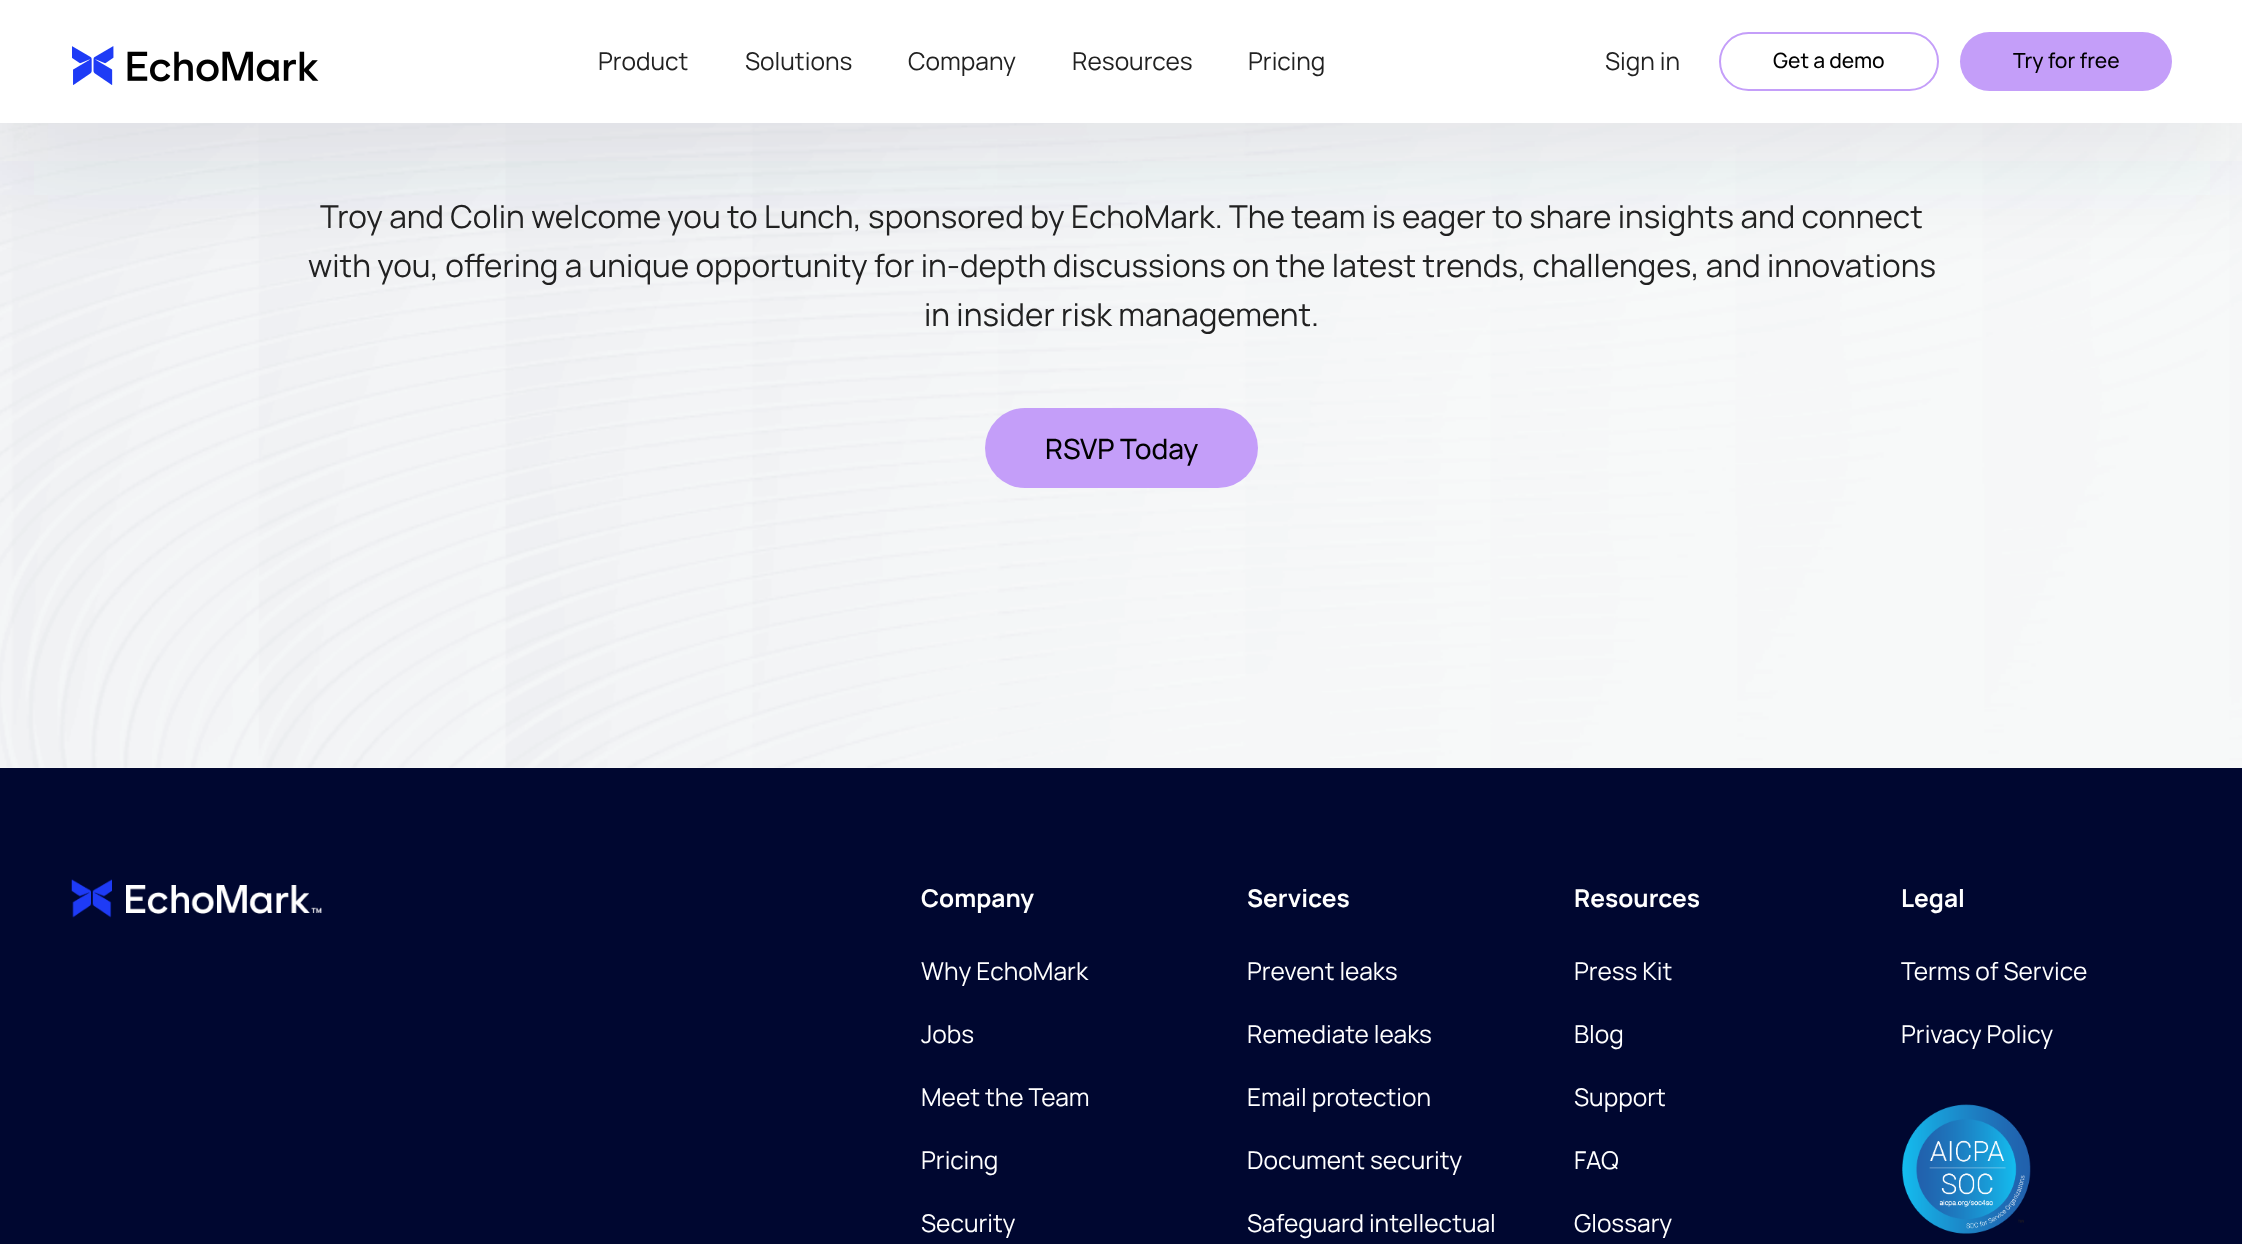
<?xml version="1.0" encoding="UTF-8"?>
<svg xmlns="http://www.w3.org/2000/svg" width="2242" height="1244">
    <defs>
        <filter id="blur1" x="-50%" y="-200%" width="200%" height="500%"><feGaussianBlur stdDeviation="51"/></filter>
    </defs>
    <rect width="100%" height="100%" fill="#FFFFFF"/>
    <image x="0" y="123" width="2242" height="645" href="img_02.png"/>
    <rect x="0" y="39" width="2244" height="122" fill="#364757" fill-opacity="0.1" filter="url(#blur1)"/>
    <rect x="0" y="0" width="2242" height="123" fill="#FFFFFF"/>
    <image x="72" y="46" width="247" height="39" href="img_01.png"/>
    <text x="598" y="70" font-family="Manrope" font-size="24.5" fill="#212121">Product</text>
    <text x="745" y="70" font-family="Manrope" font-size="24.5" fill="#212121">Solutions</text>
    <text x="908" y="70" font-family="Manrope" font-size="24.5" fill="#212121">Company</text>
    <text x="1072" y="70" font-family="Manrope" font-size="24.5" fill="#212121">Resources</text>
    <text x="1248" y="70" font-family="Manrope" font-size="24.5" fill="#212121">Pricing</text>
    <text x="1605" y="70" font-family="Manrope" font-size="24.5" fill="#212121">Sign in</text>
    <rect x="1720" y="33" width="218" height="57" rx="28.5" fill="none" stroke="#C49EF9" stroke-width="2"/>
    <text x="1773" y="68" font-family="Manrope" font-size="21" font-weight="500" fill="#000000">Get a demo</text>
    <rect x="1960" y="32" width="212" height="59" rx="29.5" fill="#C49EF9"/>
    <text x="2013" y="68" font-family="Manrope" font-size="21" font-weight="500" fill="#000000">Try for free</text>
    <text x="320" y="228" font-family="Manrope" font-size="31.5" fill="#212121">Troy and Colin welcome you to Lunch, sponsored by EchoMark. The team is eager to share insights and connect</text>
    <text x="308" y="277" font-family="Manrope" font-size="31.5" fill="#212121">with you, offering a unique opportunity for in-depth discussions on the latest trends, challenges, and innovations</text>
    <text x="924" y="326" font-family="Manrope" font-size="31.5" fill="#212121">in insider risk management.</text>
    <rect x="985" y="408" width="273" height="80" rx="40" fill="#C49EF9"/>
    <text x="1045" y="459" font-family="Manrope" font-size="28" font-weight="500" fill="#000000">RSVP Today</text>
    <rect x="0" y="768" width="2242" height="476" fill="#000730"/>
    <image x="71" y="879" width="251" height="39" href="img_03.png"/>
    <text x="921" y="907" font-family="Manrope" font-size="24.5" font-weight="700" fill="#FFFFFF">Company</text>
    <text x="921" y="980" font-family="Manrope" font-size="24.5" fill="#FFFFFF">Why EchoMark</text>
    <text x="921" y="1043" font-family="Manrope" font-size="24.5" fill="#FFFFFF">Jobs</text>
    <text x="921" y="1106" font-family="Manrope" font-size="24.5" fill="#FFFFFF">Meet the Team</text>
    <text x="921" y="1169" font-family="Manrope" font-size="24.5" fill="#FFFFFF">Pricing</text>
    <text x="921" y="1232" font-family="Manrope" font-size="24.5" fill="#FFFFFF">Security</text>
    <text x="1247" y="907" font-family="Manrope" font-size="24.5" font-weight="700" fill="#FFFFFF">Services</text>
    <text x="1247" y="980" font-family="Manrope" font-size="24.5" fill="#FFFFFF">Prevent leaks</text>
    <text x="1247" y="1043" font-family="Manrope" font-size="24.5" fill="#FFFFFF">Remediate leaks</text>
    <text x="1247" y="1106" font-family="Manrope" font-size="24.5" fill="#FFFFFF">Email protection</text>
    <text x="1247" y="1169" font-family="Manrope" font-size="24.5" fill="#FFFFFF">Document security</text>
    <text x="1247" y="1232" font-family="Manrope" font-size="24.5" fill="#FFFFFF">Safeguard intellectual</text>
    <text x="1574" y="907" font-family="Manrope" font-size="24.5" font-weight="700" fill="#FFFFFF">Resources</text>
    <text x="1574" y="980" font-family="Manrope" font-size="24.5" fill="#FFFFFF">Press Kit</text>
    <text x="1574" y="1043" font-family="Manrope" font-size="24.5" fill="#FFFFFF">Blog</text>
    <text x="1574" y="1106" font-family="Manrope" font-size="24.5" fill="#FFFFFF">Support</text>
    <text x="1574" y="1169" font-family="Manrope" font-size="24.5" fill="#FFFFFF">FAQ</text>
    <text x="1574" y="1232" font-family="Manrope" font-size="24.5" fill="#FFFFFF">Glossary</text>
    <text x="1901" y="907" font-family="Manrope" font-size="24.5" font-weight="700" fill="#FFFFFF">Legal</text>
    <text x="1901" y="980" font-family="Manrope" font-size="24.5" fill="#FFFFFF">Terms of Service</text>
    <text x="1901" y="1043" font-family="Manrope" font-size="24.5" fill="#FFFFFF">Privacy Policy</text>
    <image x="1902" y="1104" width="129" height="130" href="img_04.png"/>
</svg>
